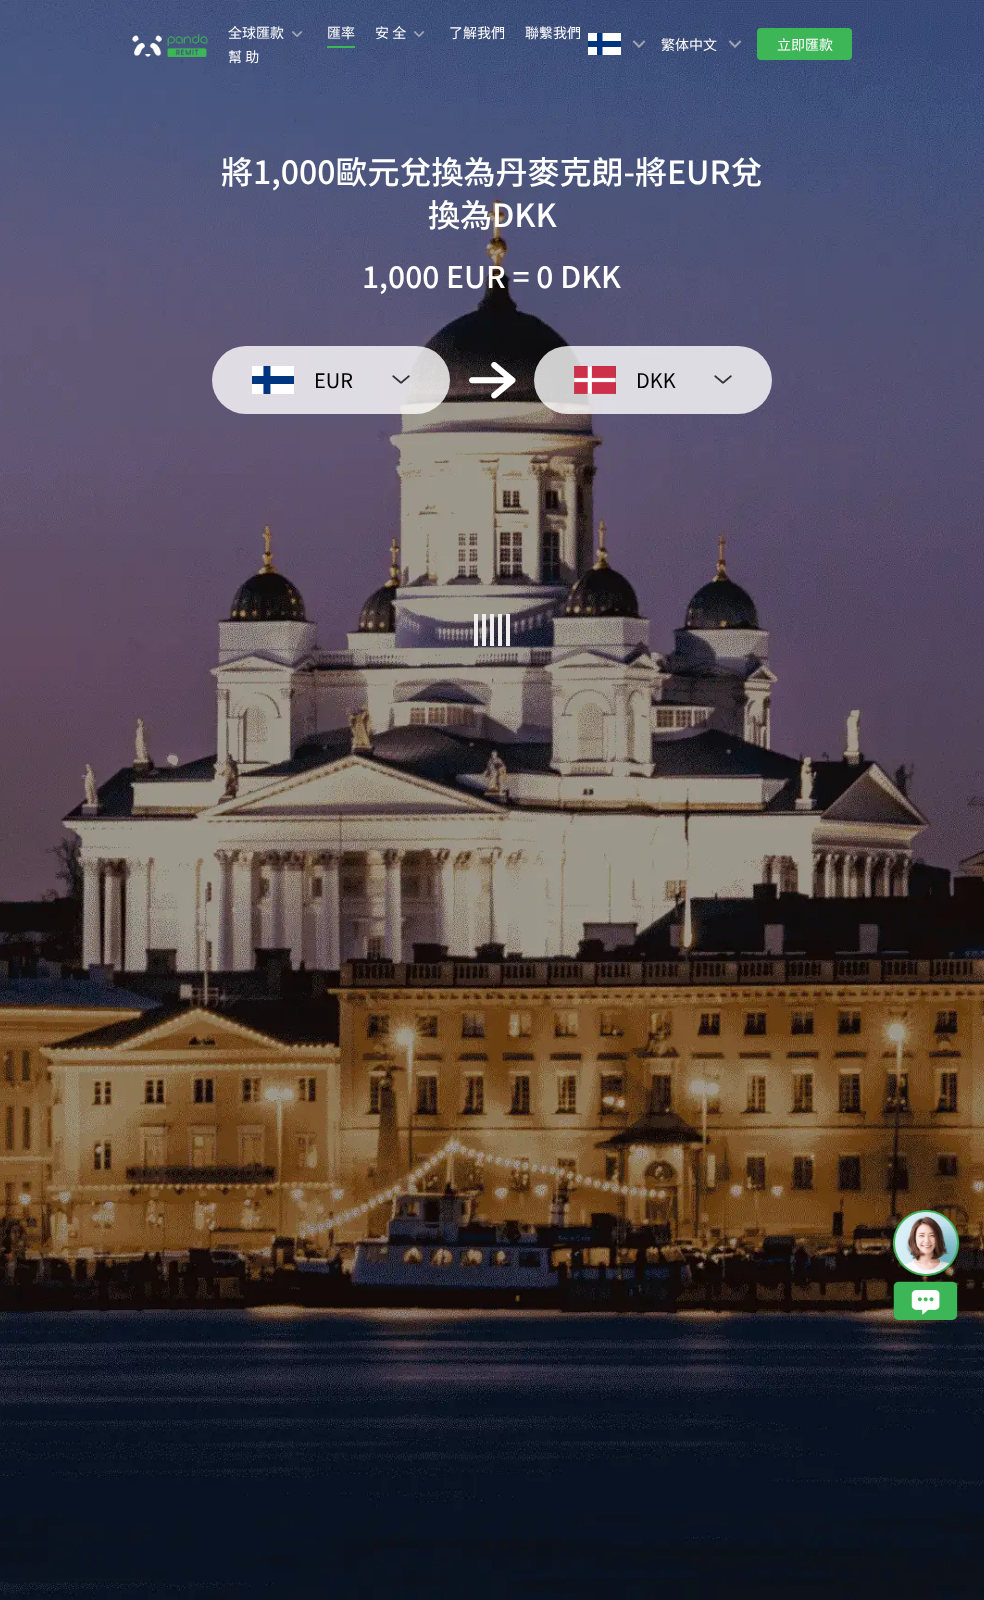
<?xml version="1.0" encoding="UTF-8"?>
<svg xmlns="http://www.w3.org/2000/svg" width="984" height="1600">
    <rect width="100%" height="100%" fill="#FFFFFF"/>
    <image x="0" y="0" width="984" height="1600" href="img_01.png"/>
    <image x="132" y="33" width="76" height="24" href="img_02.png"/>
    <text x="228" y="38" font-family="Noto Sans CJK SC" font-size="14" fill="#FFFFFF">全球匯款</text>
    <image x="291" y="31" width="12" height="7" href="img_03.png"/>
    <text x="327" y="38" font-family="Noto Sans CJK SC" font-size="14" fill="#FFFFFF">匯率</text>
    <rect x="327" y="46" width="28" height="2" fill="#3DB657"/>
    <text x="375" y="38" font-family="Noto Sans CJK SC" font-size="14" fill="#FFFFFF">安 全</text>
    <image x="413" y="31" width="12" height="7" href="img_04.png"/>
    <text x="449" y="38" font-family="Noto Sans CJK SC" font-size="14" fill="#FFFFFF">了解我們</text>
    <text x="525" y="38" font-family="Noto Sans CJK SC" font-size="14" fill="#FFFFFF">聯繫我們</text>
    <text x="228" y="62" font-family="Noto Sans CJK SC" font-size="14" fill="#FFFFFF">幫 助</text>
    <image x="588" y="33" width="33" height="22" href="img_05.png"/>
    <image x="632" y="40" width="14" height="8" href="img_06.png"/>
    <text x="661" y="50" font-family="Noto Sans CJK SC" font-size="14" fill="#FFFFFF">繁体中文</text>
    <image x="728" y="40" width="14" height="8" href="img_07.png"/>
    <rect x="757" y="28" width="95" height="32" rx="4" fill="#3DB657"/>
    <text x="777" y="50" font-family="Noto Sans CJK SC" font-size="14" fill="#FFFFFF">立即匯款</text>
    <text x="221" y="184" font-family="Noto Sans CJK SC" font-size="32" font-weight="500" fill="#FFFFFF">將1,000歐元兌換為丹麥克朗-將EUR兌</text>
    <text x="428" y="227" font-family="Noto Sans CJK SC" font-size="32" font-weight="500" fill="#FFFFFF">換為DKK</text>
    <text x="362" y="288" font-family="Noto Sans CJK SC" font-size="30" font-weight="500" fill="#FFFFFF">1,000 EUR = 0 DKK</text>
    <rect x="212" y="346" width="238" height="68" rx="34" fill="#FFFFFF" fill-opacity="0.8"/>
    <image x="252" y="366" width="42" height="28" href="img_08.png"/>
    <text x="314" y="388" font-family="Noto Sans CJK SC" font-size="20" fill="#000000">EUR</text>
    <image x="392" y="375" width="18" height="9" href="img_09.png"/>
    <image x="469" y="362" width="47" height="37" href="img_10.png"/>
    <rect x="534" y="346" width="238" height="68" rx="34" fill="#FFFFFF" fill-opacity="0.8"/>
    <image x="574" y="366" width="42" height="28" href="img_11.png"/>
    <text x="636" y="388" font-family="Noto Sans CJK SC" font-size="20" fill="#000000">DKK</text>
    <image x="714" y="375" width="18" height="9" href="img_12.png"/>
    <rect x="474" y="614" width="4" height="32" fill="#EEEEEE"/>
    <rect x="482" y="614" width="4" height="32" fill="#EEEEEE"/>
    <rect x="490" y="614" width="4" height="32" fill="#EEEEEE"/>
    <rect x="498" y="614" width="4" height="32" fill="#EEEEEE"/>
    <rect x="506" y="614" width="4" height="32" fill="#EEEEEE"/>
    <image x="893" y="1210" width="67" height="110" href="img_13.png"/>
</svg>
